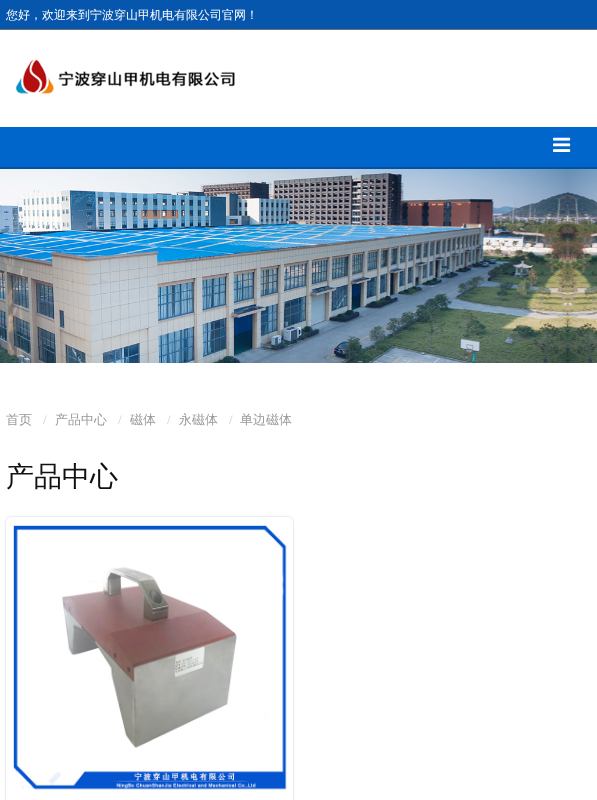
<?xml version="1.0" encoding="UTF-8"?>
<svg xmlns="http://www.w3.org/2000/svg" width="597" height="800">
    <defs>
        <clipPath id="clip1"><path d="M 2 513 H 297 V 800 H 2 Z M 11 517 H 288 C 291 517 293 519 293 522 V 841 C 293 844 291 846 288 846 H 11 C 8 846 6 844 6 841 V 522 C 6 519 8 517 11 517 Z" clip-rule="evenodd"/></clipPath>
        <filter id="blur1" x="-50%" y="-200%" width="200%" height="500%"><feGaussianBlur stdDeviation="1"/></filter>
    </defs>
    <rect width="100%" height="100%" fill="#FFFFFF"/>
    <rect x="0" y="0" width="597" height="29" fill="#0656AD"/>
    <rect x="0" y="29" width="597" height="1" fill="#6F6F6F"/>
    <text x="6" y="19" font-family="WenQuanYi Zen Hei" font-size="12" font-weight="500" fill="#FFFFFF">您好，欢迎来到宁波穿山甲机电有限公司官网！</text>
    <image x="15" y="59" width="220" height="36" href="img_01.png"/>
    <rect x="0" y="127" width="597" height="40" fill="#0066CC"/>
    <rect x="0" y="167" width="597" height="2" fill="#0352A1"/>
    <image x="553" y="137" width="18" height="15" href="img_02.png"/>
    <image x="0" y="169" width="597" height="194" href="img_03.png"/>
    <text x="6" y="424" font-family="WenQuanYi Zen Hei" font-size="13" font-weight="500" fill="#999999">首页</text>
    <text x="43" y="424" font-family="Liberation Serif" font-size="13" fill="#CCCCCC">/</text>
    <text x="55" y="424" font-family="WenQuanYi Zen Hei" font-size="13" font-weight="500" fill="#999999">产品中心</text>
    <text x="118" y="424" font-family="Liberation Serif" font-size="13" fill="#CCCCCC">/</text>
    <text x="130" y="424" font-family="WenQuanYi Zen Hei" font-size="13" font-weight="500" fill="#999999">磁体</text>
    <text x="167" y="424" font-family="Liberation Serif" font-size="13" fill="#CCCCCC">/</text>
    <text x="179" y="424" font-family="WenQuanYi Zen Hei" font-size="13" font-weight="500" fill="#999999">永磁体</text>
    <text x="229" y="424" font-family="Liberation Serif" font-size="13" fill="#CCCCCC">/</text>
    <text x="240" y="424" font-family="WenQuanYi Zen Hei" font-size="13" font-weight="500" fill="#999999">单边磁体</text>
    <text x="6" y="486" font-family="WenQuanYi Zen Hei" font-size="28" font-weight="500" fill="#111111">产品中心</text>
    <g clip-path="url(#clip1)">
        <rect x="6" y="517" width="287" height="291" rx="5" fill="#000000" fill-opacity="0.2" filter="url(#blur1)"/>
    </g>
    <image x="13" y="525" width="274" height="265" href="img_04.png"/>
</svg>
